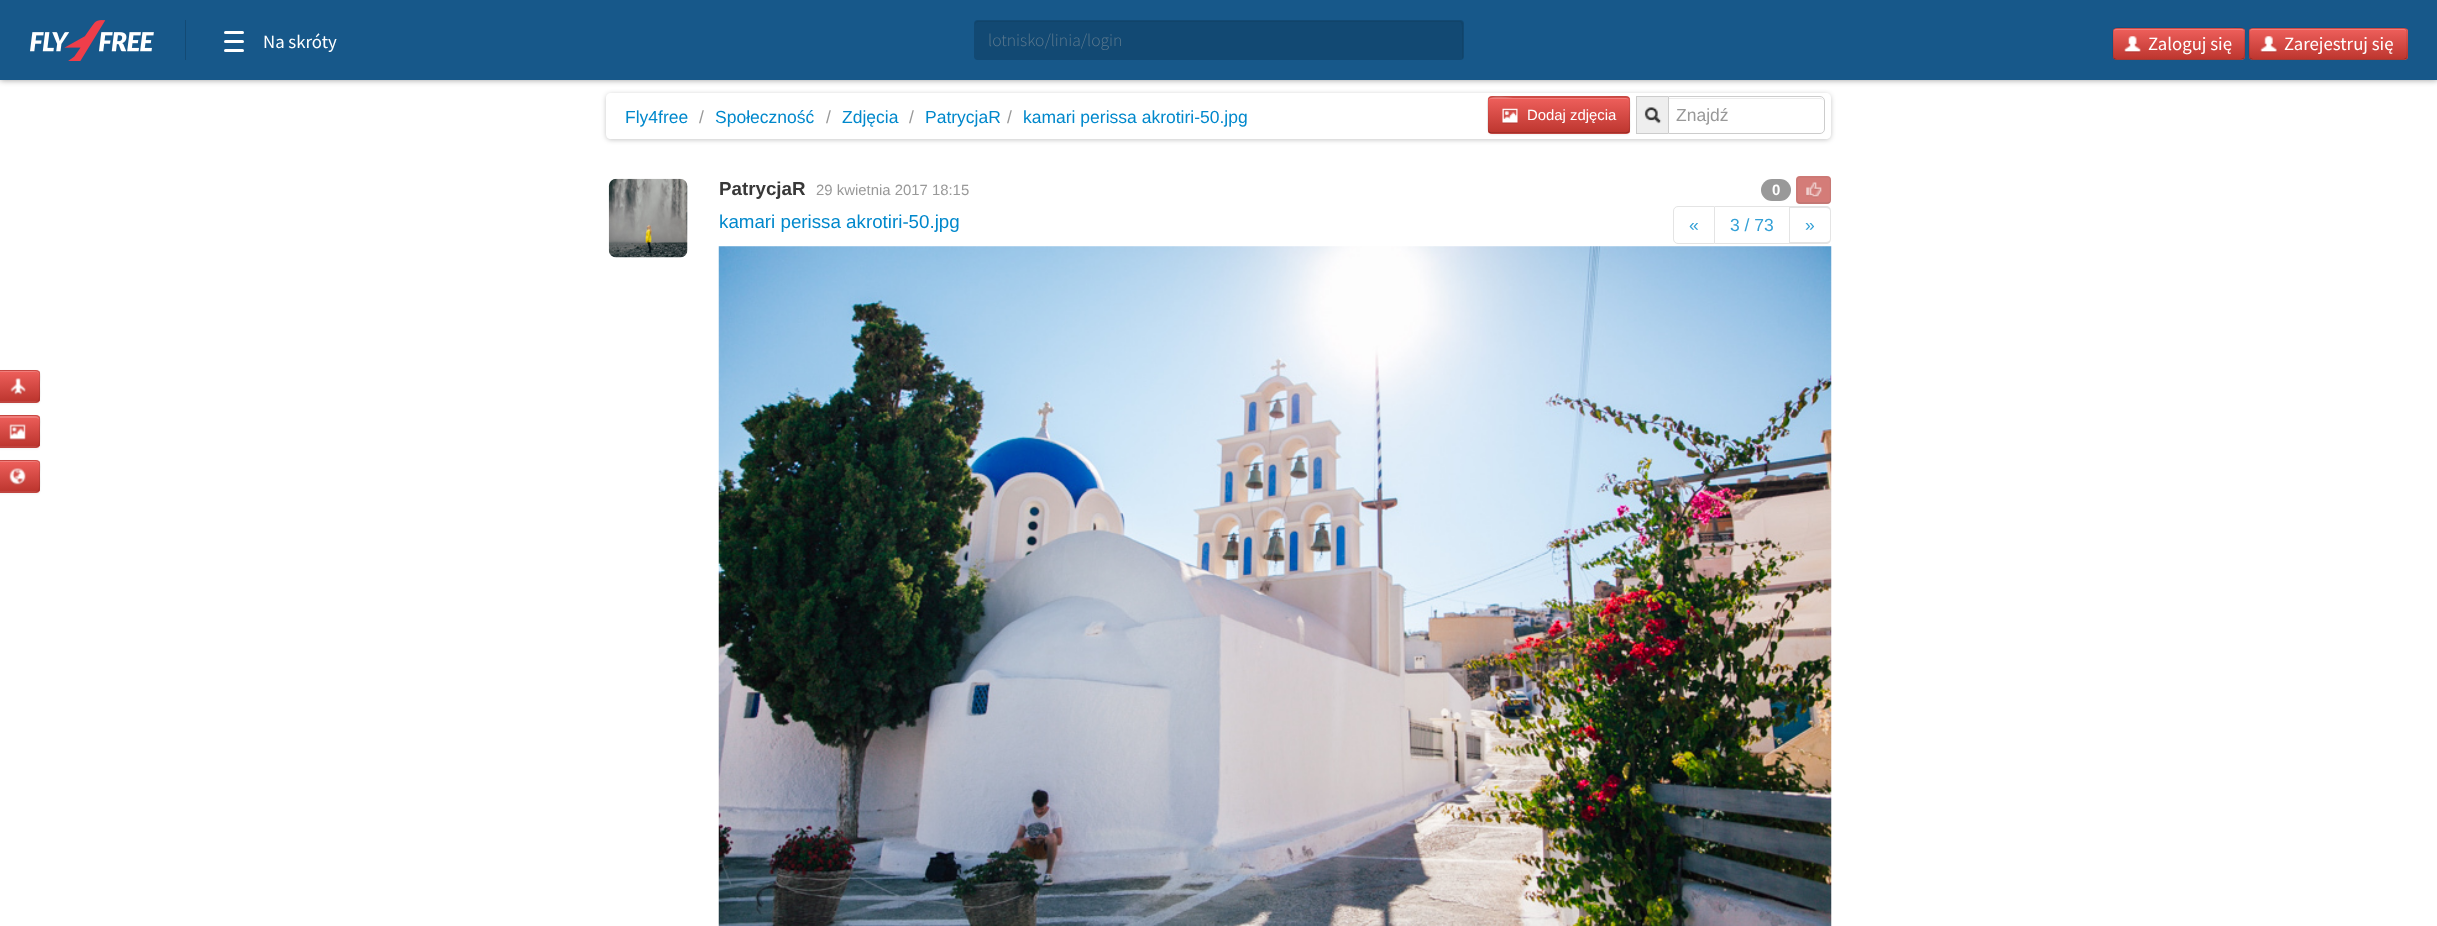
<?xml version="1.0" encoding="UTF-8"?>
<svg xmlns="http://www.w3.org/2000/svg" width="2437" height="926">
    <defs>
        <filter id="blur1" x="-50%" y="-200%" width="200%" height="500%"><feGaussianBlur stdDeviation="3"/></filter>
        <clipPath id="clip1"><rect x="2113" y="28" width="132" height="32" rx="4"/></clipPath>
        <linearGradient id="g1" gradientUnits="userSpaceOnUse" x1="2179" y1="29" x2="2179" y2="59"><stop offset="0" stop-color="#EE5F5B"/><stop offset="1" stop-color="#BD362F"/></linearGradient>
        <clipPath id="clip2"><rect x="2249" y="28" width="159" height="32" rx="4"/></clipPath>
        <linearGradient id="g2" gradientUnits="userSpaceOnUse" x1="2328" y1="29" x2="2328" y2="59"><stop offset="0" stop-color="#EE5F5B"/><stop offset="1" stop-color="#BD362F"/></linearGradient>
        <clipPath id="clip3"><path d="M 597 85 H 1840 V 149 H 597 Z M 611 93 H 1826 C 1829 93 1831 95 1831 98 V 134 C 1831 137 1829 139 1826 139 H 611 C 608 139 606 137 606 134 V 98 C 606 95 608 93 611 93 Z" clip-rule="evenodd"/></clipPath>
        <filter id="blur2" x="-50%" y="-200%" width="200%" height="500%"><feGaussianBlur stdDeviation="2.5"/></filter>
        <filter id="blur3" x="-50%" y="-200%" width="200%" height="500%"><feGaussianBlur stdDeviation="1"/></filter>
        <clipPath id="clip4"><rect x="1488" y="96" width="142" height="38" rx="4"/></clipPath>
        <linearGradient id="g3" gradientUnits="userSpaceOnUse" x1="1559" y1="98" x2="1559" y2="133"><stop offset="0" stop-color="#EE5F5B"/><stop offset="1" stop-color="#BD362F"/></linearGradient>
        <clipPath id="clip5"><rect x="-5" y="370" width="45" height="33" rx="4"/></clipPath>
        <linearGradient id="g4" gradientUnits="userSpaceOnUse" x1="17" y1="371" x2="18" y2="401"><stop offset="0" stop-color="#EE5F5B"/><stop offset="1" stop-color="#BD362F"/></linearGradient>
        <clipPath id="clip6"><rect x="-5" y="415" width="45" height="33" rx="4"/></clipPath>
        <linearGradient id="g5" gradientUnits="userSpaceOnUse" x1="17" y1="416" x2="18" y2="446"><stop offset="0" stop-color="#EE5F5B"/><stop offset="1" stop-color="#BD362F"/></linearGradient>
        <clipPath id="clip7"><rect x="-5" y="460" width="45" height="33" rx="4"/></clipPath>
        <linearGradient id="g6" gradientUnits="userSpaceOnUse" x1="17" y1="461" x2="18" y2="491"><stop offset="0" stop-color="#EE5F5B"/><stop offset="1" stop-color="#BD362F"/></linearGradient>
    </defs>
    <rect width="100%" height="100%" fill="#FFFFFF"/>
    <rect x="0" y="0" width="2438" height="80" fill="#000000" fill-opacity="0.4" filter="url(#blur1)"/>
    <rect x="0" y="0" width="2437" height="80" fill="#17588A"/>
    <image x="30" y="20" width="124" height="41" href="img_01.png"/>
    <rect x="185" y="20" width="1" height="40" fill="#134A74"/>
    <rect x="224" y="49" width="20" height="3" rx="1.5" fill="#FFFFFF"/>
    <rect x="224" y="31" width="20" height="3" rx="1.5" fill="#FFFFFF"/>
    <rect x="224" y="40" width="20" height="3" rx="1.5" fill="#FFFFFF"/>
    <text x="263" y="48" font-family="Source Sans Pro" font-size="18.75" fill="#FFFFFF">Na skróty</text>
    <rect x="974" y="20" width="490" height="40" rx="4" fill="#124973"/>
    <path d="M 978 22 H 1460 C 1463 22 1462 35 1462 36 V 59 C 1463 58 1463 57 1463 56 V 24 C 1463 22 1462 21 1460 21 H 978 C 976 21 975 22 975 24 V 25 C 975 24 976 22 978 22 Z" fill="#11446A"/>
    <text x="988" y="46" font-family="Source Sans Pro" font-size="17.5" font-weight="300" fill="#5E7A8F">lotnisko/linia/login</text>
    <rect x="2113" y="28" width="132" height="32" rx="4" fill="#DA4F49"/>
    <g clip-path="url(#clip1)">
        <rect x="2113" y="29" width="132" height="30" fill="url(#g1)"/>
    </g>
    <path d="M 2116 30 H 2241 C 2243 30 2244 31 2244 32 C 2244 30 2243 29 2242 29 H 2116 C 2115 29 2114 30 2114 32 C 2114 31 2115 30 2116 30 Z" fill="#F17E7B"/>
    <path d="M 2243.5 58.5 L 2241 59.5 H 2116 L 2114 58.5" fill="none" stroke="#000000" stroke-opacity="0.25" stroke-width="1.2"/>
    <path d="M 2114 58.5 C 2112 56.5 2113 50.5 2113 48 C 2113 23 2109 28 2137 28 H 2220.5 C 2248.5 28 2244.5 23 2244.5 48 C 2244.5 50.5 2245.5 56.5 2243.5 58.5" fill="none" stroke="#000000" stroke-opacity="0.1" stroke-width="1.2"/>
    <image x="2124" y="36" width="17" height="17" href="img_02.png"/>
    <text x="2148" y="50" font-family="Source Sans Pro" font-size="18.75" fill="#FFFFFF">Zaloguj się</text>
    <rect x="2249" y="28" width="159" height="32" rx="4" fill="#DA4F49"/>
    <g clip-path="url(#clip2)">
        <rect x="2249" y="29" width="159" height="30" fill="url(#g2)"/>
    </g>
    <path d="M 2252 30 H 2404 C 2405 30 2406 31 2406 32 C 2406 30 2405 29 2404 29 H 2252 C 2251 29 2250 30 2250 32 C 2250 31 2251 30 2252 30 Z" fill="#F17E7B"/>
    <path d="M 2406 58.5 L 2404 59.5 H 2277.5 H 2252.5 L 2250.5 58.5" fill="none" stroke="#000000" stroke-opacity="0.25" stroke-width="1.2"/>
    <path d="M 2250.5 58.5 C 2248 56.5 2249.5 46.5 2249.5 44 V 35.5 C 2249.5 33 2248.5 28 2252.5 28 H 2404 C 2407.5 28 2407 33 2407 35.5 V 44 C 2407 46.5 2408 56.5 2406 58.5" fill="none" stroke="#000000" stroke-opacity="0.1" stroke-width="1.2"/>
    <image x="2260" y="36" width="17" height="17" href="img_03.png"/>
    <text x="2284" y="50" font-family="Source Sans Pro" font-size="18.75" fill="#FFFFFF">Zarejestruj się</text>
    <g clip-path="url(#clip3)">
        <rect x="606" y="94" width="1225" height="46" rx="5" fill="#000000" fill-opacity="0.22" filter="url(#blur2)"/>
    </g>
    <text x="625" y="123" font-family="Liberation Sans" font-size="17.5" fill="#0088CC">Fly4free</text>
    <text x="699" y="123" font-family="Liberation Sans" font-size="17.5" fill="#999999">/</text>
    <text x="715" y="123" font-family="Liberation Sans" font-size="17.5" fill="#0088CC">Społeczność</text>
    <text x="826" y="123" font-family="Liberation Sans" font-size="17.5" fill="#999999">/</text>
    <text x="842" y="123" font-family="Liberation Sans" font-size="17.5" fill="#0088CC">Zdjęcia</text>
    <text x="909" y="123" font-family="Liberation Sans" font-size="17.5" fill="#999999">/</text>
    <text x="925" y="123" font-family="Liberation Sans" font-size="17.5" fill="#0088CC">PatrycjaR</text>
    <text x="1007" y="123" font-family="Liberation Sans" font-size="17.5" fill="#999999">/</text>
    <text x="1023" y="123" font-family="Liberation Sans" font-size="17.5" fill="#0088CC">kamari perissa akrotiri-50.jpg</text>
    <rect x="1488" y="98" width="142" height="37" rx="4" fill="#000000" fill-opacity="0.05" filter="url(#blur3)"/>
    <rect x="1488" y="96" width="142" height="38" rx="4" fill="#DA4F49"/>
    <g clip-path="url(#clip4)">
        <rect x="1488" y="98" width="142" height="35" fill="url(#g3)"/>
    </g>
    <path d="M 1491 99 H 1626 C 1628 99 1629 100 1629 101 L 1628 99 L 1626 98 H 1514 C 1511 98 1489 93 1489 101 C 1489 100 1490 99 1491 99 Z" fill="#FFFFFF" fill-opacity="0.2"/>
    <path d="M 1628.5 132 L 1626 133 H 1491 L 1489 132" fill="none" stroke="#000000" stroke-opacity="0.25" stroke-width="1.2"/>
    <path d="M 1489 132 C 1487 130 1488 122.5 1488 120 C 1488 91 1482.5 97 1514 97 H 1604 C 1635 97 1629.5 91 1629.5 120 C 1629.5 122.5 1630.5 130 1628.5 132" fill="none" stroke="#000000" stroke-opacity="0.1" stroke-width="1.2"/>
    <image x="1502" y="108" width="16" height="16" href="img_04.png"/>
    <text x="1527" y="120" font-family="Liberation Sans" font-size="14.9" fill="#FFFFFF">Dodaj zdjęcia</text>
    <rect x="1636.5" y="96.5" width="32" height="37" fill="#EEEEEE" stroke="#CCCCCC"/>
    <image x="1644" y="107" width="18" height="17" href="img_05.png"/>
    <path d="M 1668 96 H 1820 C 1823 96 1825 98 1825 101 V 129 C 1825 132 1823 134 1820 134 H 1668 Z" fill="#FFFFFF"/>
    <path d="M 1669 99 H 1820 C 1822 99 1824 100 1824 102 C 1824 100 1822 98 1820 98 H 1669 Z" fill="#ECECEC"/>
    <path d="M 1668.5 96.5 H 1820 C 1822.5 96.5 1824.5 98.5 1824.5 101 V 129 C 1824.5 131.5 1822.5 133.5 1820 133.5 H 1668.5 Z" fill="none" stroke="#CCCCCC"/>
    <text x="1676" y="121" font-family="Liberation Sans" font-size="17.5" fill="#999999">Znajdź</text>
    <image x="608" y="178" width="80" height="80" href="img_06.png"/>
    <text x="719" y="195" font-family="Liberation Sans" font-size="18.75" font-weight="700" fill="#383838">PatrycjaR</text>
    <text x="816" y="195" font-family="Liberation Sans" font-size="14.9" fill="#999999">29 kwietnia 2017 18:15</text>
    <rect x="1761" y="179" width="30" height="22" rx="11" fill="#999999"/>
    <text x="1772" y="195" font-family="Liberation Sans" font-size="15" font-weight="700" fill="#FFFFFF">0</text>
    <rect x="1796" y="176" width="35" height="28" rx="4" fill="#D47C78"/>
    <path d="M 1829.5 202 C 1829 203 1828.5 203 1827.5 203 H 1800 C 1799 203 1798.5 203 1798 202" fill="none" stroke="#595959" stroke-opacity="0.25" stroke-width="1.2"/>
    <path d="M 1798 202 C 1797 201.5 1797 201 1797 200 V 180 C 1797 179 1797 178.5 1798 178 C 1798.5 177 1799 177 1800 177 H 1827.5 C 1828.5 177 1829 177 1829.5 178 C 1830.5 178.5 1830.5 179 1830.5 180 V 200 C 1830.5 201 1830.5 201.5 1829.5 202" fill="none" stroke="#595959" stroke-opacity="0.1" stroke-width="1.2"/>
    <image x="1806" y="182" width="16" height="16" href="img_07.png"/>
    <text x="719" y="228" font-family="Liberation Sans" font-size="18.75" fill="#0088CC">kamari perissa akrotiri-50.jpg</text>
    <path d="M 1678 206.5 H 1714.5 V 243.5 H 1678 C 1675.5 243.5 1673.5 241.5 1673.5 239 V 211 C 1673.5 208.5 1675.5 206.5 1678 206.5 Z" fill="none" stroke="#E4E4E4"/>
    <text x="1689" y="231" font-family="Liberation Sans" font-size="17.5" fill="#33A0D6">«</text>
    <rect x="1715" y="206" width="75" height="1" fill="#E4E4E4"/>
    <rect x="1789" y="206" width="1" height="38" fill="#E4E4E4"/>
    <rect x="1715" y="243" width="75" height="1" fill="#E4E4E4"/>
    <text x="1730" y="231" font-family="Liberation Sans" font-size="17.5" fill="#33A0D6">3 / 73</text>
    <path d="M 1790 206 H 1826 C 1829 206 1831 208 1831 211 V 239 C 1831 242 1829 244 1826 244 H 1790 Z M 1790 208 H 1826 C 1828 208 1830 209 1830 211 V 239 C 1830 241 1828 242 1826 242 H 1790 Z" fill="#E4E4E4" fill-rule="evenodd"/>
    <text x="1805" y="231" font-family="Liberation Sans" font-size="17.5" fill="#33A0D6">»</text>
    <image x="718" y="246" width="1114" height="680" href="img_08.png"/>
    <rect x="-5" y="371" width="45" height="33" rx="4" fill="#000000" fill-opacity="0.05" filter="url(#blur3)"/>
    <rect x="-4" y="370" width="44" height="33" rx="4" fill="#DA4F49"/>
    <g clip-path="url(#clip5)">
        <rect x="0" y="371" width="40" height="30" fill="url(#g4)"/>
    </g>
    <path d="M -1 372 H 36 C 38 372 39 374 39 375 C 39 370 35 371 30 371 H 5 C 0 371 -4 370 -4 375 C -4 374 -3 372 -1 372 Z" fill="#FFFFFF" fill-opacity="0.2"/>
    <path d="M 38.5 401 L 36 402 H -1 L -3.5 401" fill="none" stroke="#A43B37" stroke-width="1.2"/>
    <path d="M -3.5 401 C -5.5 399 -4.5 389 -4.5 386 C -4.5 372 -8 370.5 5 370.5 H 30 C 43 370.5 39.5 372 39.5 386 C 39.5 389 40.5 399 38.5 401" fill="none" stroke="#000000" stroke-opacity="0.1" stroke-width="1.2"/>
    <image x="10" y="378" width="16" height="17" href="img_09.png"/>
    <rect x="-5" y="416" width="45" height="33" rx="4" fill="#000000" fill-opacity="0.05" filter="url(#blur3)"/>
    <rect x="-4" y="415" width="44" height="33" rx="4" fill="#DA4F49"/>
    <g clip-path="url(#clip6)">
        <rect x="0" y="416" width="40" height="30" fill="url(#g5)"/>
    </g>
    <path d="M -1 418 H 36 C 38 418 39 419 39 420 C 39 415 35 416 30 416 H 5 C 0 416 -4 415 -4 420 C -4 419 -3 418 -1 418 Z" fill="#FFFFFF" fill-opacity="0.2"/>
    <path d="M 38.5 446 L 36 447 H -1 L -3.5 446" fill="none" stroke="#A43B37" stroke-width="1.2"/>
    <path d="M -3.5 446 C -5.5 444 -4.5 434 -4.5 431 C -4.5 417 -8 415.5 5 415.5 H 30 C 43 415.5 39.5 417 39.5 431 C 39.5 434 40.5 444 38.5 446" fill="none" stroke="#000000" stroke-opacity="0.1" stroke-width="1.2"/>
    <image x="9" y="424" width="17" height="17" href="img_10.png"/>
    <rect x="-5" y="461" width="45" height="33" rx="4" fill="#000000" fill-opacity="0.05" filter="url(#blur3)"/>
    <rect x="-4" y="460" width="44" height="33" rx="4" fill="#DA4F49"/>
    <g clip-path="url(#clip7)">
        <rect x="0" y="461" width="40" height="30" fill="url(#g6)"/>
    </g>
    <path d="M -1 462 H 36 C 38 462 39 464 39 465 C 39 460 35 461 30 461 H 5 C 0 461 -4 460 -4 465 C -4 464 -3 462 -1 462 Z" fill="#FFFFFF" fill-opacity="0.2"/>
    <path d="M 38.5 491 L 36 492 H -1 L -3.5 491" fill="none" stroke="#A43B37" stroke-width="1.2"/>
    <path d="M -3.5 491 C -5.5 489 -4.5 479 -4.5 476 C -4.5 462 -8 460.5 5 460.5 H 30 C 43 460.5 39.5 462 39.5 476 C 39.5 479 40.5 489 38.5 491" fill="none" stroke="#000000" stroke-opacity="0.1" stroke-width="1.2"/>
    <image x="9" y="468" width="17" height="17" href="img_11.png"/>
</svg>
